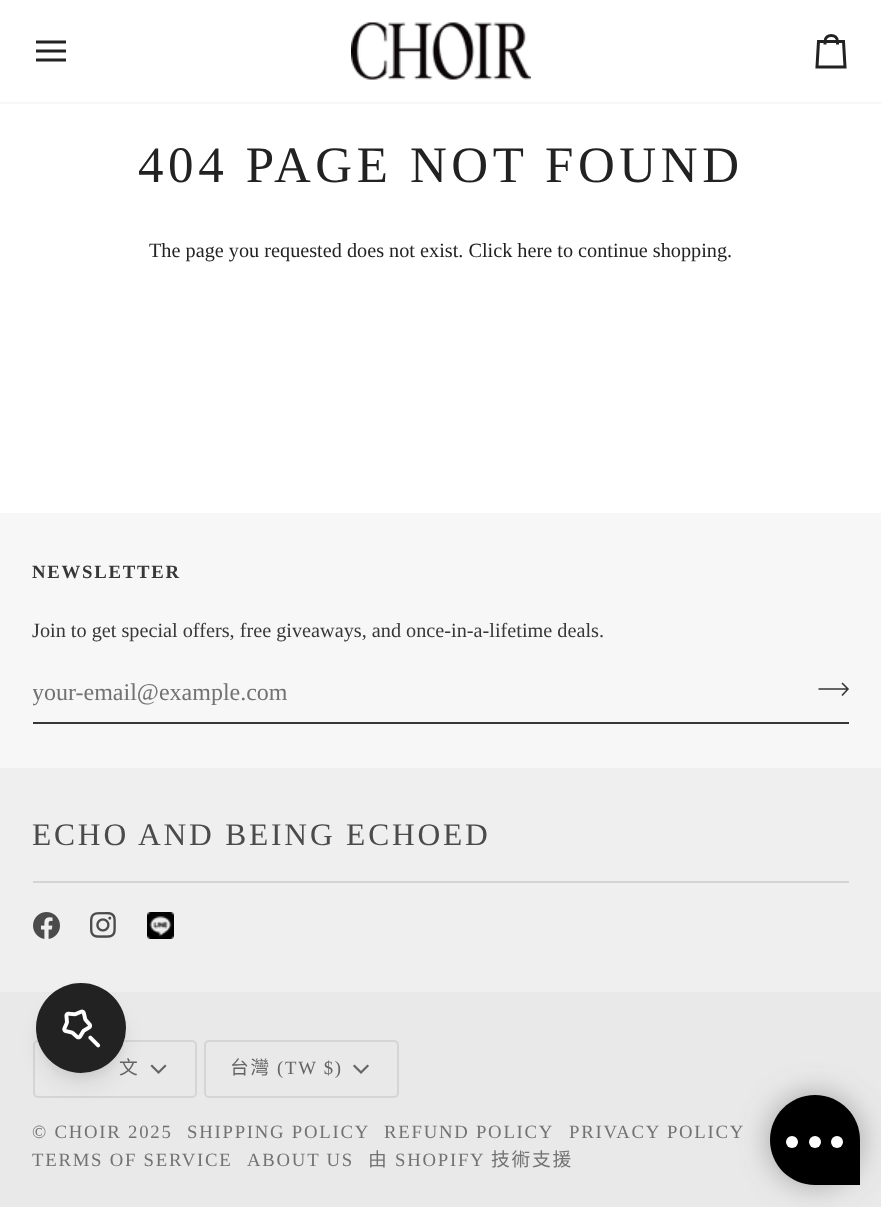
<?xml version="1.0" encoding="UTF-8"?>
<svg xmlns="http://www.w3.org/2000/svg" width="881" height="1207">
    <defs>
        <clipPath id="clip1"><rect x="33" y="680" width="752" height="27"/></clipPath>
        <filter id="blur1" x="-50%" y="-200%" width="200%" height="500%"><feGaussianBlur stdDeviation="4.5"/></filter>
        <filter id="blur2" x="-50%" y="-200%" width="200%" height="500%"><feGaussianBlur stdDeviation="11"/></filter>
        <filter id="blur3" x="-50%" y="-200%" width="200%" height="500%"><feGaussianBlur stdDeviation="15"/></filter>
    </defs>
    <rect width="100%" height="100%" fill="#FFFFFF"/>
    <rect x="0" y="102" width="881" height="2" fill="#F7F7F7"/>
    <path d="M 64.5 42 H 37.5 M 64.5 51 H 37.5 M 64.5 60 H 37.5" fill="none" stroke="#222222" stroke-width="3" stroke-linecap="square"/>
    <image x="351" y="22" width="180" height="58" href="img_01.png"/>
    <path d="M 837.5 44.5 V 41.5 H 843.5 L 845 67 H 817 L 818.5 41.5 H 825 C 825 33.5 837.5 33.5 837.5 41.5 H 825 V 44.5" fill="none" stroke="#222222" stroke-width="3"/>
    <text x="138" y="182" font-family="Liberation Serif" font-size="51" letter-spacing="4.6" fill="#222222">404 PAGE NOT FOUND</text>
    <text x="149" y="257" font-family="Liberation Serif" font-size="20.25" fill="#222222">The page you requested does not exist. Click here to continue shopping.</text>
    <rect x="0" y="768" width="881" height="224" fill="#EFEFEF"/>
    <rect x="0" y="513" width="881" height="255" fill="#F7F7F7"/>
    <text x="32" y="578" font-family="Liberation Serif" font-size="18.75" font-weight="700" letter-spacing="1.75" fill="#373737">NEWSLETTER</text>
    <text x="32" y="637" font-family="Liberation Serif" font-size="20.25" fill="#373737">Join to get special offers, free giveaways, and once-in-a-lifetime deals.</text>
    <rect x="33" y="722" width="816" height="2" fill="#373737"/>
    <g clip-path="url(#clip1)">
        <text x="32" y="700" font-family="Liberation Serif" font-size="24" fill="#727272">your-email@example.com</text>
    </g>
    <path d="M 842 683 L 848 689 L 842 695.5 M 818.5 689 H 848" fill="none" stroke="#373737" stroke-width="1.6"/>
    <text x="32" y="845" font-family="Liberation Serif" font-size="31.5" letter-spacing="2.8" fill="#4B4B4B">ECHO AND BEING ECHOED</text>
    <rect x="33" y="881" width="816" height="2" fill="#D4D4D4"/>
    <image x="33" y="912" width="27" height="27" href="img_02.png"/>
    <image x="90" y="912" width="26" height="26" href="img_03.png"/>
    <image x="147" y="912" width="27" height="27" href="img_04.png"/>
    <rect x="0" y="992" width="881" height="215" fill="#E9E9E9"/>
    <rect x="34" y="1041" width="162" height="56" rx="4" fill="none" stroke="#D5D5D5" stroke-width="2"/>
    <rect x="39" y="992" width="84" height="84" rx="42" fill="#000000" fill-opacity="0.05" filter="url(#blur1)"/>
    <path d="M 152 1066 L 158.5 1072.5 L 165 1066" fill="none" stroke="#656565" stroke-width="2.2" stroke-linecap="square"/>
    <rect x="41" y="1002" width="81" height="81" rx="40.5" fill="#000000" fill-opacity="0.1" filter="url(#blur2)"/>
    <text x="119" y="1074" font-family="Noto Sans CJK TC" font-size="18.75" letter-spacing="1.75" fill="#656565">文</text>
    <circle cx="81" cy="1028" r="45" fill="#222222"/>
    <image x="62" y="1009" width="39" height="39" href="img_05.png"/>
    <rect x="770" y="1095" width="90" height="90" rx="45" fill="#777777" fill-opacity="0.64" filter="url(#blur3)"/>
    <path d="M 815 1095 C 840 1095 860 1115 860 1140 V 1185 H 815 C 790 1185 770 1165 770 1140 C 770 1115 790 1095 815 1095 Z" fill="#000000"/>
    <circle cx="792" cy="1142" r="6" fill="#FFFFFF"/>
    <circle cx="815" cy="1142" r="6" fill="#FFFFFF"/>
    <circle cx="837" cy="1142" r="6" fill="#FFFFFF"/>
    <rect x="205" y="1041" width="193" height="56" rx="4" fill="none" stroke="#D5D5D5" stroke-width="2"/>
    <text x="230" y="1074" font-family="Noto Sans CJK TC" font-size="18.75" letter-spacing="1.75" fill="#656565">台灣</text>
    <text x="277" y="1074" font-family="Liberation Serif" font-size="18.75" letter-spacing="1.75" fill="#656565">(TW $)</text>
    <path d="M 354.5 1066 L 361 1072.5 L 367.5 1066" fill="none" stroke="#656565" stroke-width="2.2" stroke-linecap="square"/>
    <text x="32" y="1138" font-family="Liberation Serif" font-size="18.75" letter-spacing="1.75" fill="#727272">© CHOIR</text>
    <text x="128" y="1138" font-family="Liberation Serif" font-size="18.75" letter-spacing="1.75" fill="#727272">2025</text>
    <text x="187" y="1138" font-family="Liberation Serif" font-size="18.75" letter-spacing="1.75" fill="#727272">SHIPPING POLICY</text>
    <text x="384" y="1138" font-family="Liberation Serif" font-size="18.75" letter-spacing="1.75" fill="#727272">REFUND POLICY</text>
    <text x="569" y="1138" font-family="Liberation Serif" font-size="18.75" letter-spacing="1.75" fill="#727272">PRIVACY POLICY</text>
    <text x="32" y="1166" font-family="Liberation Serif" font-size="18.75" letter-spacing="1.75" fill="#727272">TERMS OF SERVICE</text>
    <text x="247" y="1166" font-family="Liberation Serif" font-size="18.75" letter-spacing="1.75" fill="#727272">ABOUT US</text>
    <text x="368" y="1166" font-family="Noto Sans CJK TC" font-size="18.75" letter-spacing="1.75" fill="#727272">由</text>
    <text x="395" y="1166" font-family="Liberation Serif" font-size="18.75" letter-spacing="1.75" fill="#727272">SHOPIFY</text>
    <text x="491" y="1166" font-family="Noto Sans CJK TC" font-size="18.75" letter-spacing="1.75" fill="#727272">技術支援</text>
</svg>
